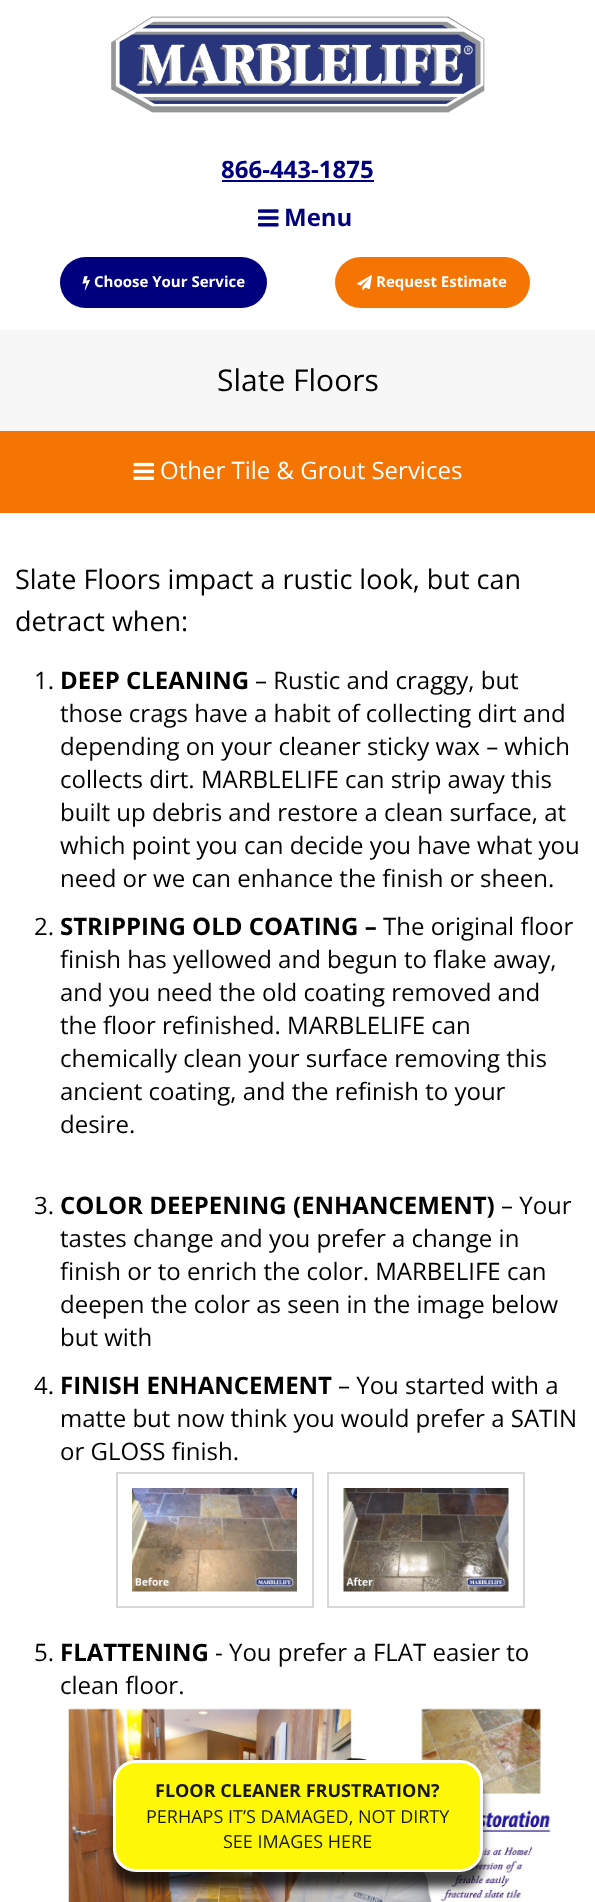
<?xml version="1.0" encoding="UTF-8"?>
<svg xmlns="http://www.w3.org/2000/svg" width="595" height="1902">
    <defs>
        <filter id="blur1" x="-50%" y="-200%" width="200%" height="500%"><feGaussianBlur stdDeviation="4"/></filter>
    </defs>
    <rect width="100%" height="100%" fill="#FFFFFF"/>
    <image x="111" y="16" width="374" height="97" href="img_01.png"/>
    <text x="221" y="178" font-family="Open Sans" font-size="24" font-weight="700" fill="#00007E">866-443-1875</text>
    <rect x="222" y="180" width="152" height="2" fill="#00007E"/>
    <image x="258" y="209" width="21" height="18" href="img_02.png"/>
    <text x="284" y="226" font-family="Open Sans" font-size="24" font-weight="700" fill="#00007E">Menu</text>
    <rect x="60" y="257" width="207" height="51" rx="25.5" fill="#00007E"/>
    <image x="82" y="276" width="8" height="15" href="img_03.png"/>
    <text x="94" y="287" font-family="Open Sans" font-size="15" font-weight="700" fill="#FFFFFF">Choose Your Service</text>
    <rect x="335" y="257" width="195" height="51" rx="25.5" fill="#F47503"/>
    <image x="357" y="275" width="15" height="16" href="img_04.png"/>
    <text x="376" y="287" font-family="Open Sans" font-size="15" font-weight="700" fill="#FFFFFF">Request Estimate</text>
    <rect x="0" y="330" width="595" height="101" fill="#F7F7F7"/>
    <text x="217" y="391" font-family="Open Sans" font-size="30" fill="#000000">Slate Floors</text>
    <rect x="0" y="431" width="595" height="82" fill="#F47503"/>
    <image x="133" y="462" width="22" height="18" href="img_05.png"/>
    <text x="160" y="479" font-family="Open Sans" font-size="24" fill="#FFFFFF">Other Tile &amp; Grout Services</text>
    <text font-family="Open Sans" font-size="27" fill="#000000">
        <tspan x="15" y="589">Slate Floors impact a rustic look, but can</tspan>
        <tspan x="15" y="631">detract when:</tspan>
    </text>
    <text x="34" y="689" font-family="Open Sans" font-size="24" fill="#000000">1.</text>
    <text x="60" y="689" font-family="Open Sans" font-size="24" font-weight="700" fill="#000000">DEEP CLEANING</text>
    <text x="255" y="689" font-family="Open Sans" font-size="24" fill="#000000">– Rustic and craggy, but</text>
    <text font-family="Open Sans" font-size="24" fill="#000000">
        <tspan x="60" y="722">those crags have a habit of collecting dirt and</tspan>
        <tspan x="60" y="755">depending on your cleaner sticky wax – which</tspan>
        <tspan x="60" y="788">collects dirt. MARBLELIFE can strip away this</tspan>
        <tspan x="60" y="821">built up debris and restore a clean surface, at</tspan>
        <tspan x="60" y="854">which point you can decide you have what you</tspan>
        <tspan x="60" y="887">need or we can enhance the finish or sheen.</tspan>
    </text>
    <text x="34" y="935" font-family="Open Sans" font-size="24" fill="#000000">2.</text>
    <text x="60" y="935" font-family="Open Sans" font-size="24" font-weight="700" fill="#000000">STRIPPING OLD COATING –</text>
    <text x="383" y="935" font-family="Open Sans" font-size="24" fill="#000000">The original floor</text>
    <text font-family="Open Sans" font-size="24" fill="#000000">
        <tspan x="60" y="968">finish has yellowed and begun to flake away,</tspan>
        <tspan x="60" y="1001">and you need the old coating removed and</tspan>
        <tspan x="60" y="1034">the floor refinished. MARBLELIFE can</tspan>
        <tspan x="60" y="1067">chemically clean your surface removing this</tspan>
        <tspan x="60" y="1100">ancient coating, and the refinish to your</tspan>
        <tspan x="60" y="1133">desire.</tspan>
    </text>
    <text x="34" y="1214" font-family="Open Sans" font-size="24" fill="#000000">3.</text>
    <text x="60" y="1214" font-family="Open Sans" font-size="24" font-weight="700" fill="#000000">COLOR DEEPENING (ENHANCEMENT)</text>
    <text x="501" y="1214" font-family="Open Sans" font-size="24" fill="#000000">– Your</text>
    <text font-family="Open Sans" font-size="24" fill="#000000">
        <tspan x="60" y="1247">tastes change and you prefer a change in</tspan>
        <tspan x="60" y="1280">finish or to enrich the color. MARBELIFE can</tspan>
        <tspan x="60" y="1313">deepen the color as seen in the image below</tspan>
        <tspan x="60" y="1346">but with</tspan>
    </text>
    <text x="34" y="1394" font-family="Open Sans" font-size="24" fill="#000000">4.</text>
    <text x="60" y="1394" font-family="Open Sans" font-size="24" font-weight="700" fill="#000000">FINISH ENHANCEMENT</text>
    <text x="338" y="1394" font-family="Open Sans" font-size="24" fill="#000000">– You started with a</text>
    <text font-family="Open Sans" font-size="24" fill="#000000">
        <tspan x="60" y="1427">matte but now think you would prefer a SATIN</tspan>
        <tspan x="60" y="1460">or GLOSS finish.</tspan>
    </text>
    <rect x="117" y="1473" width="196" height="134" fill="none" stroke="#D7D7D7" stroke-width="2"/>
    <image x="132" y="1488" width="165" height="104" href="img_06.png"/>
    <rect x="328" y="1473" width="196" height="134" fill="none" stroke="#D7D7D7" stroke-width="2"/>
    <image x="343" y="1488" width="166" height="104" href="img_07.png"/>
    <text x="34" y="1661" font-family="Open Sans" font-size="24" fill="#000000">5.</text>
    <text x="60" y="1661" font-family="Open Sans" font-size="24" font-weight="700" fill="#000000">FLATTENING</text>
    <text x="215" y="1661" font-family="Open Sans" font-size="24" fill="#000000">- You prefer a FLAT easier to</text>
    <text x="60" y="1694" font-family="Open Sans" font-size="24" fill="#000000">clean floor.</text>
    <image x="68" y="1708" width="487" height="194" href="img_08.png"/>
    <rect x="113" y="1775" width="370" height="112" rx="23" fill="#000000" fill-opacity="0.75" filter="url(#blur1)"/>
    <rect x="114.5" y="1761.5" width="367" height="109" rx="21.5" fill="#FFF708" stroke="#FFFFFF" stroke-width="3"/>
    <text x="155" y="1797" font-family="Open Sans" font-size="18" font-weight="700" fill="#171717">FLOOR CLEANER FRUSTRATION?</text>
    <text x="146" y="1823" font-family="Open Sans" font-size="18" fill="#171717">PERHAPS IT’S DAMAGED, NOT DIRTY</text>
    <text x="223" y="1848" font-family="Open Sans" font-size="18" fill="#171717">SEE IMAGES HERE</text>
</svg>
